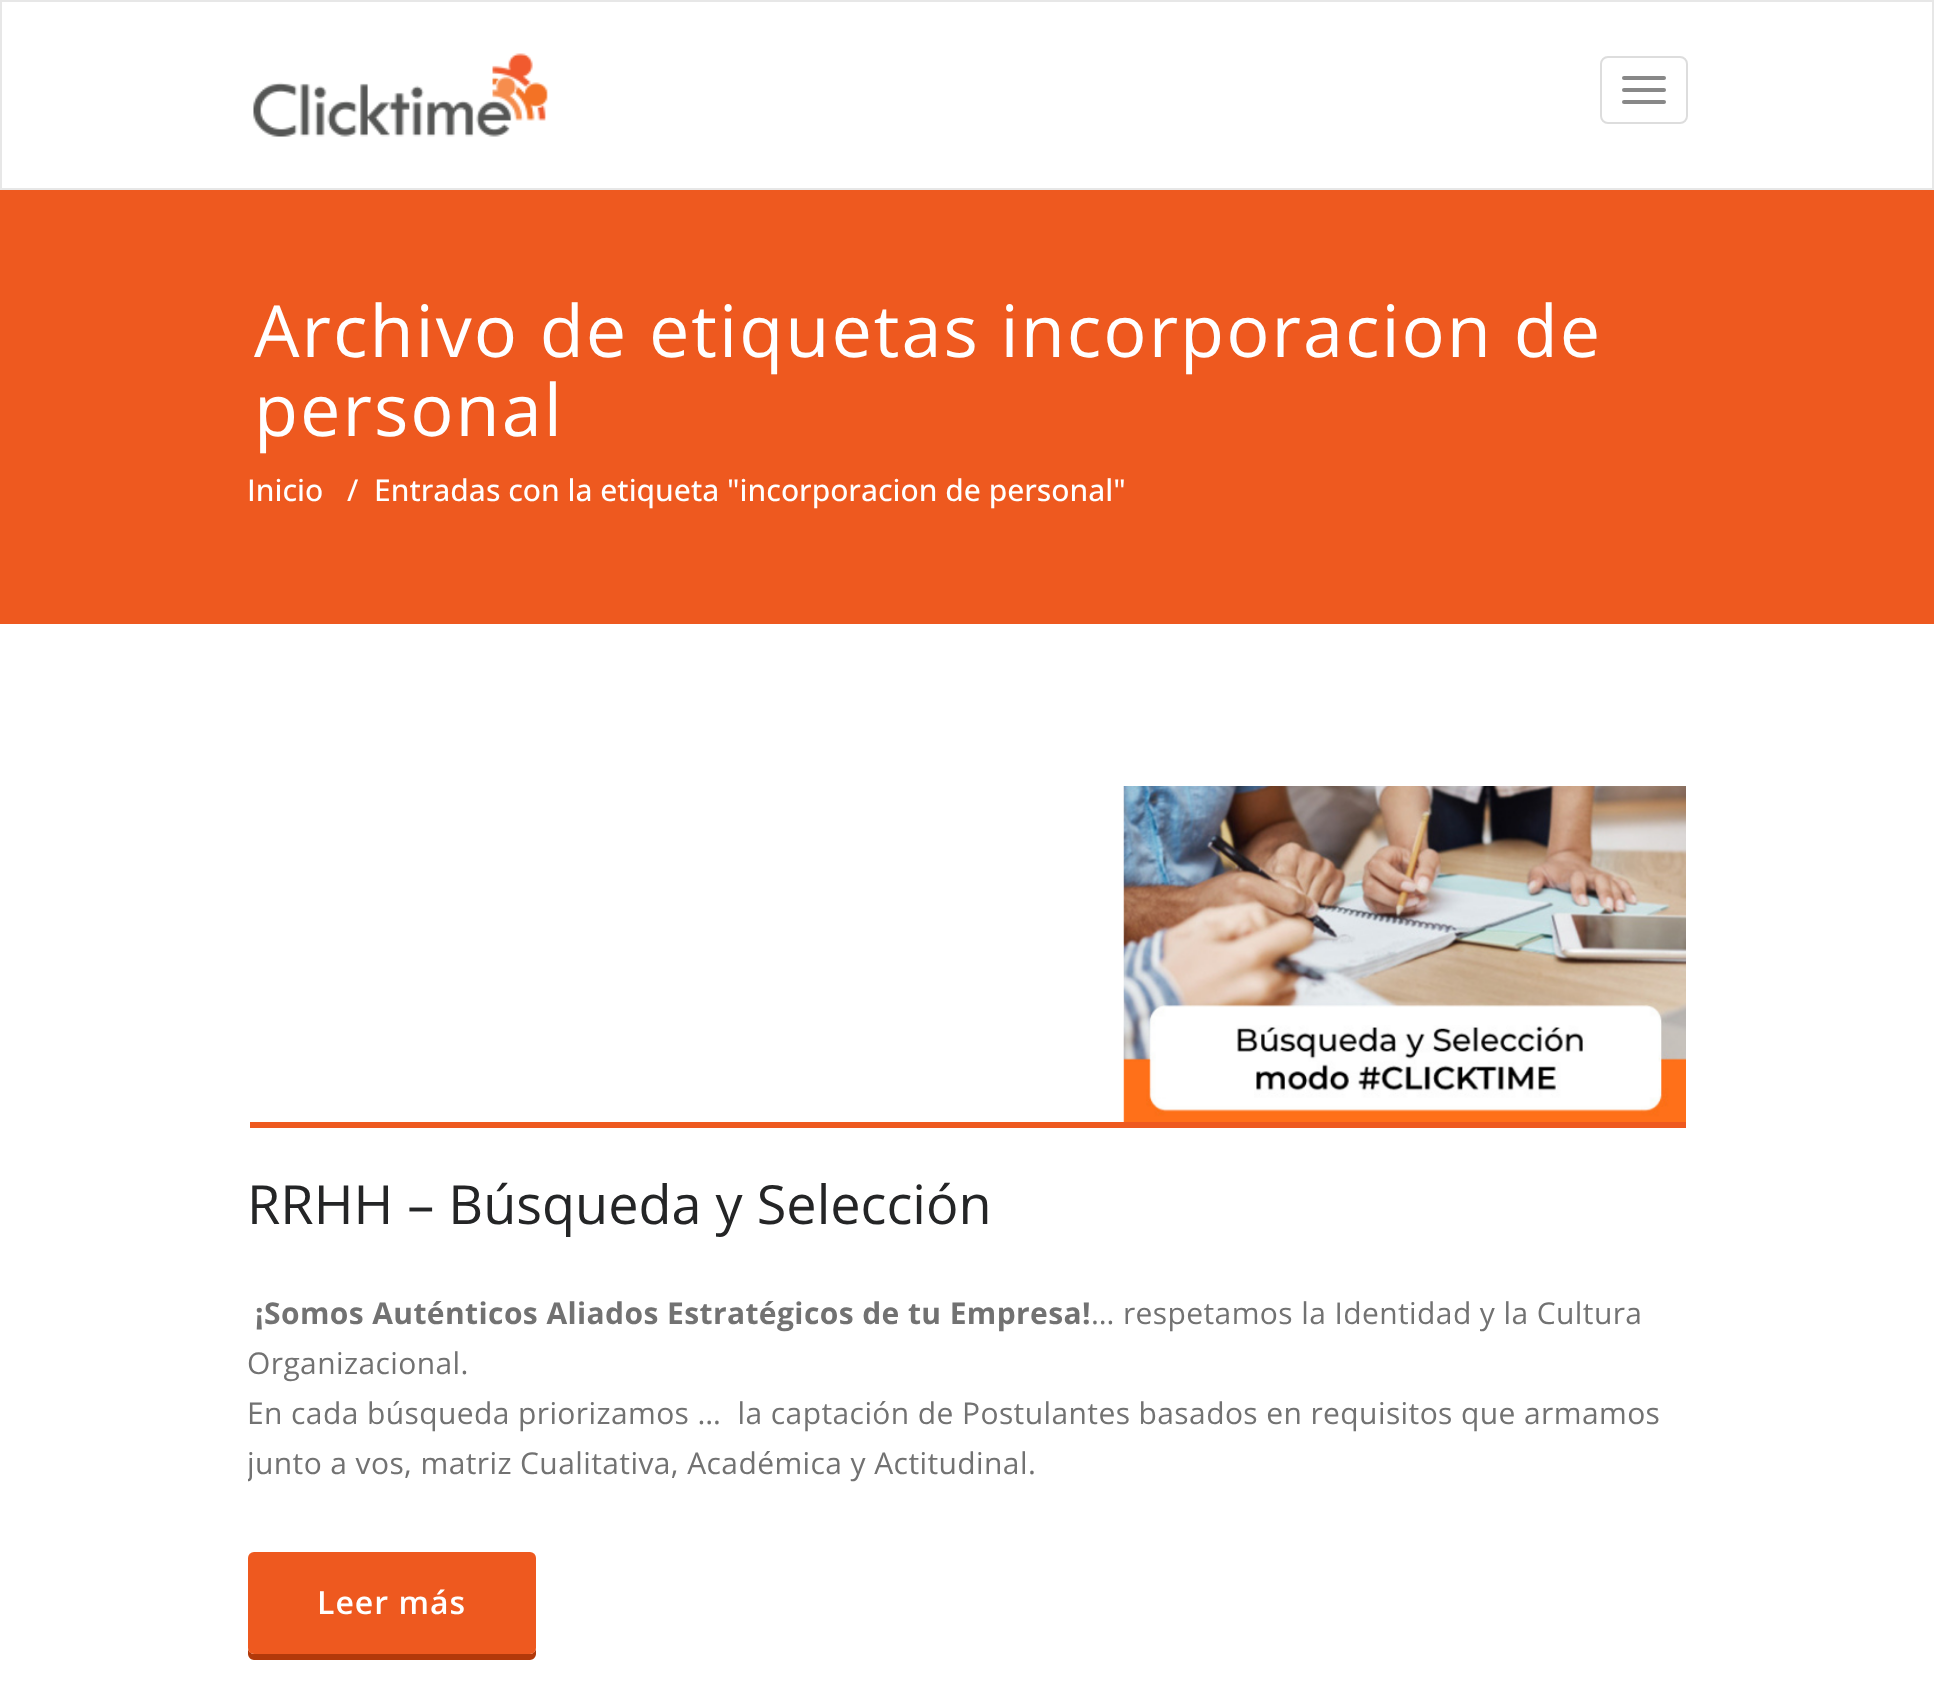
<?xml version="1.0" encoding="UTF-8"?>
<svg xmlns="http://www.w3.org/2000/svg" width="1934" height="1696">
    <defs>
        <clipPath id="clip1"><rect x="248" y="784" width="1440" height="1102"/></clipPath>
    </defs>
    <rect width="100%" height="100%" fill="#FFFFFF"/>
    <rect x="1" y="1" width="1932" height="188" fill="none" stroke="#E7E7E7" stroke-width="2"/>
    <image x="253" y="53" width="295" height="84" href="img_01.png"/>
    <rect x="1601" y="57" width="86" height="66" rx="7" fill="none" stroke="#DDDDDD" stroke-width="2"/>
    <rect x="1622" y="76" width="44" height="4" rx="2" fill="#888888"/>
    <rect x="1622" y="88" width="44" height="4" rx="2" fill="#888888"/>
    <rect x="1622" y="100" width="44" height="4" rx="2" fill="#888888"/>
    <rect x="0" y="190" width="1934" height="434" fill="#EE591F"/>
    <text font-family="Open Sans" font-size="72" letter-spacing="2" fill="#FFFFFF">
        <tspan x="254" y="357">Archivo de etiquetas incorporacion de</tspan>
        <tspan x="254" y="436">personal</tspan>
    </text>
    <text x="247" y="501" font-family="Open Sans" font-size="30" font-weight="500" fill="#FFFFFF">Inicio</text>
    <text x="347" y="501" font-family="Open Sans" font-size="30" font-weight="500" fill="#FFFFFF">/</text>
    <text x="374" y="501" font-family="Open Sans" font-size="30" font-weight="500" fill="#FFFFFF">Entradas con la etiqueta "incorporacion de personal"</text>
    <rect x="250" y="1122" width="1436" height="6" fill="#EE591F"/>
    <image x="1123" y="786" width="563" height="336" href="img_02.png"/>
    <text x="247" y="1224" font-family="Open Sans" font-size="54" fill="#242526">RRHH – Búsqueda y Selección</text>
    <text x="255" y="1324" font-family="Open Sans" font-size="30" font-weight="700" letter-spacing="0.4" fill="#727272">¡Somos Auténticos Aliados Estratégicos de tu Empresa!</text>
    <text x="1091" y="1324" font-family="Open Sans" font-size="30" letter-spacing="0.4" fill="#727272">… respetamos la Identidad y la Cultura</text>
    <text font-family="Open Sans" font-size="30" letter-spacing="0.4" fill="#727272" xml:space="preserve"><tspan x="247" y="1374">Organizacional.</tspan><tspan x="247" y="1424">En cada búsqueda priorizamos …  la captación de Postulantes basados en requisitos que armamos</tspan></text>
    <g clip-path="url(#clip1)">
        <text x="247" y="1474" font-family="Open Sans" font-size="30" letter-spacing="0.4" fill="#727272">junto a vos, matriz Cualitativa, Académica y Actitudinal.</text>
    </g>
    <path d="M 248 1648 V 1654 C 248 1657 251 1660 254 1660 H 530 C 533 1660 536 1657 536 1654 V 1648 C 536 1651 533 1654 530 1654 H 254 C 251 1654 248 1651 248 1648 Z" fill="#B2390A"/>
    <rect x="248" y="1552" width="288" height="102" rx="6" fill="#EE591F"/>
    <text x="317" y="1614" font-family="Open Sans" font-size="32" font-weight="600" letter-spacing="1" fill="#FFFFFF">Leer más</text>
</svg>
